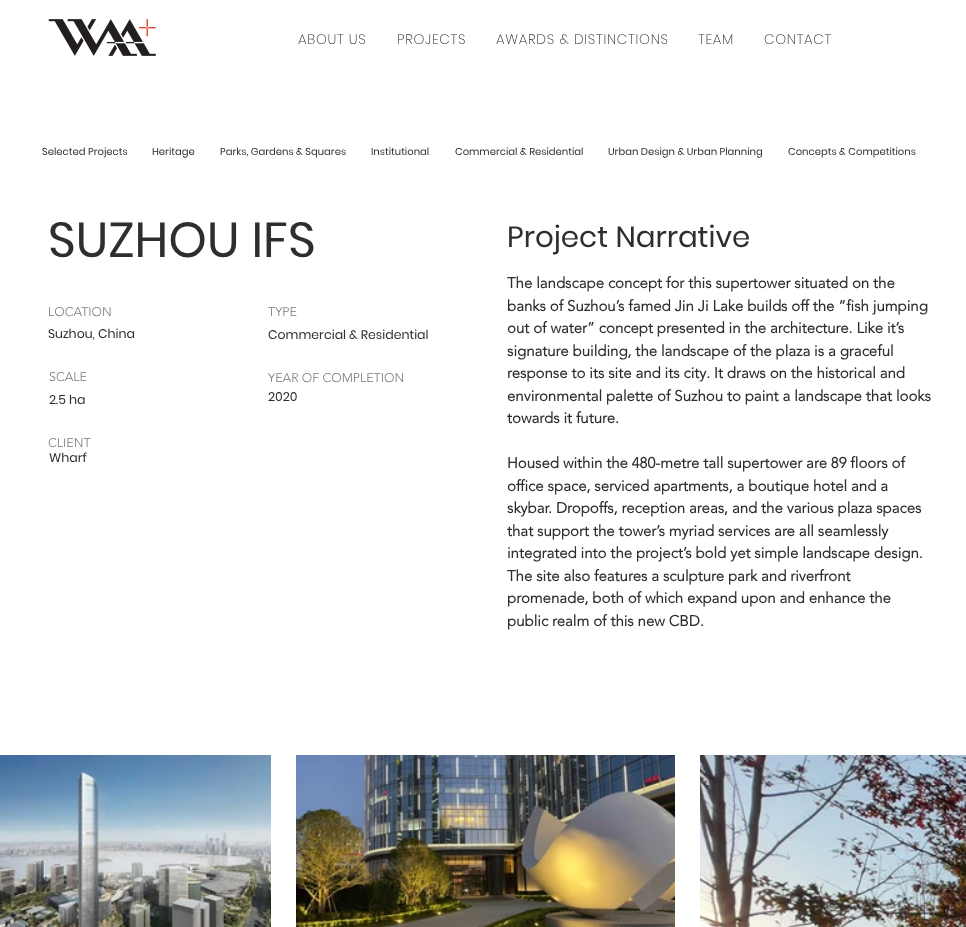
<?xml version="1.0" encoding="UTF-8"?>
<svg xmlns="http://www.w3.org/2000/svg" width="966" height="927">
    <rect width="100%" height="100%" fill="#FFFFFF"/>
    <image x="48" y="19" width="108" height="37" href="img_01.png"/>
    <text x="298" y="44" font-family="Poppins" font-size="13.75" font-weight="200" letter-spacing="0.7" fill="#2E2E2E">ABOUT US</text>
    <text x="397" y="44" font-family="Poppins" font-size="13.75" font-weight="200" letter-spacing="0.7" fill="#2E2E2E">PROJECTS</text>
    <text x="496" y="44" font-family="Poppins" font-size="13.75" font-weight="200" letter-spacing="0.7" fill="#2E2E2E">AWARDS &amp; DISTINCTIONS</text>
    <text x="698" y="44" font-family="Poppins" font-size="13.75" font-weight="200" letter-spacing="0.7" fill="#2E2E2E">TEAM</text>
    <text x="764" y="44" font-family="Poppins" font-size="13.75" font-weight="200" letter-spacing="0.7" fill="#2E2E2E">CONTACT</text>
    <text x="42" y="155" font-family="Poppins" font-size="10" fill="#2E2E2E">Selected Projects</text>
    <text x="152" y="155" font-family="Poppins" font-size="10" fill="#2E2E2E">Heritage</text>
    <text x="220" y="155" font-family="Poppins" font-size="10" fill="#2E2E2E">Parks, Gardens &amp; Squares</text>
    <text x="371" y="155" font-family="Poppins" font-size="10" fill="#2E2E2E">Institutional</text>
    <text x="455" y="155" font-family="Poppins" font-size="10" fill="#2E2E2E">Commercial &amp; Residential</text>
    <text x="608" y="155" font-family="Poppins" font-size="10" fill="#2E2E2E">Urban Design &amp; Urban Planning</text>
    <text x="788" y="155" font-family="Poppins" font-size="10" fill="#2E2E2E">Concepts &amp; Competitions</text>
    <text x="48" y="257" font-family="Poppins" font-size="49" fill="#2E2E2E">SUZHOU IFS</text>
    <text x="48" y="316" font-family="'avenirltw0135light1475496'" font-size="12.5" font-weight="300" fill="#787878">LOCATION</text>
    <text x="48" y="338" font-family="Poppins" font-size="12.5" fill="#2E2E2E">Suzhou, China</text>
    <text x="268" y="316" font-family="'avenirltw0135light1475496'" font-size="12.5" font-weight="300" fill="#787878">TYPE</text>
    <text x="268" y="339" font-family="Poppins" font-size="12.5" fill="#2E2E2E">Commercial &amp; Residential</text>
    <text x="49" y="381" font-family="'avenirltw0135light1475496'" font-size="12.5" font-weight="300" fill="#787878">SCALE</text>
    <text x="49" y="404" font-family="Poppins" font-size="12.5" fill="#2E2E2E">2.5 ha</text>
    <text x="268" y="382" font-family="'avenirltw0135light1475496'" font-size="12.5" font-weight="300" fill="#787878">YEAR OF COMPLETION</text>
    <text x="268" y="401" font-family="Poppins" font-size="12.5" fill="#2E2E2E">2020</text>
    <text x="48" y="447" font-family="'avenirltw0135light1475496'" font-size="12.5" font-weight="300" fill="#787878">CLIENT</text>
    <text x="49" y="462" font-family="Poppins" font-size="12.5" fill="#2E2E2E">Wharf</text>
    <text x="507" y="247" font-family="Poppins" font-size="29.25" fill="#2E2E2E">Project Narrative</text>
    <text font-family="'avenirltw0135light1475496'" font-size="15" font-weight="700" fill="#2E2E2E">
        <tspan x="507" y="288">The landscape concept for this supertower situated on the</tspan>
        <tspan x="507" y="311">banks of Suzhou’s famed Jin Ji Lake builds off the “fish jumping</tspan>
        <tspan x="507" y="333">out of water” concept presented in the architecture. Like it’s</tspan>
        <tspan x="507" y="356">signature building, the landscape of the plaza is a graceful</tspan>
        <tspan x="507" y="378">response to its site and its city. It draws on the historical and</tspan>
        <tspan x="507" y="401">environmental palette of Suzhou to paint a landscape that looks</tspan>
        <tspan x="507" y="423">towards it future.</tspan>
    </text>
    <text font-family="'avenirltw0135light1475496'" font-size="15" font-weight="700" fill="#2E2E2E">
        <tspan x="507" y="468">Housed within the 480-metre tall supertower are 89 floors of</tspan>
        <tspan x="507" y="491">office space, serviced apartments, a boutique hotel and a</tspan>
        <tspan x="507" y="513">skybar. Dropoffs, reception areas, and the various plaza spaces</tspan>
        <tspan x="507" y="536">that support the tower’s myriad services are all seamlessly</tspan>
        <tspan x="507" y="558">integrated into the project’s bold yet simple landscape design.</tspan>
        <tspan x="507" y="581">The site also features a sculpture park and riverfront</tspan>
        <tspan x="507" y="603">promenade, both of which expand upon and enhance the</tspan>
        <tspan x="507" y="626">public realm of this new CBD.</tspan>
    </text>
    <image x="0" y="755" width="271" height="172" href="img_02.png"/>
    <image x="296" y="755" width="379" height="172" href="img_03.png"/>
    <image x="700" y="755" width="266" height="172" href="img_04.png"/>
</svg>
